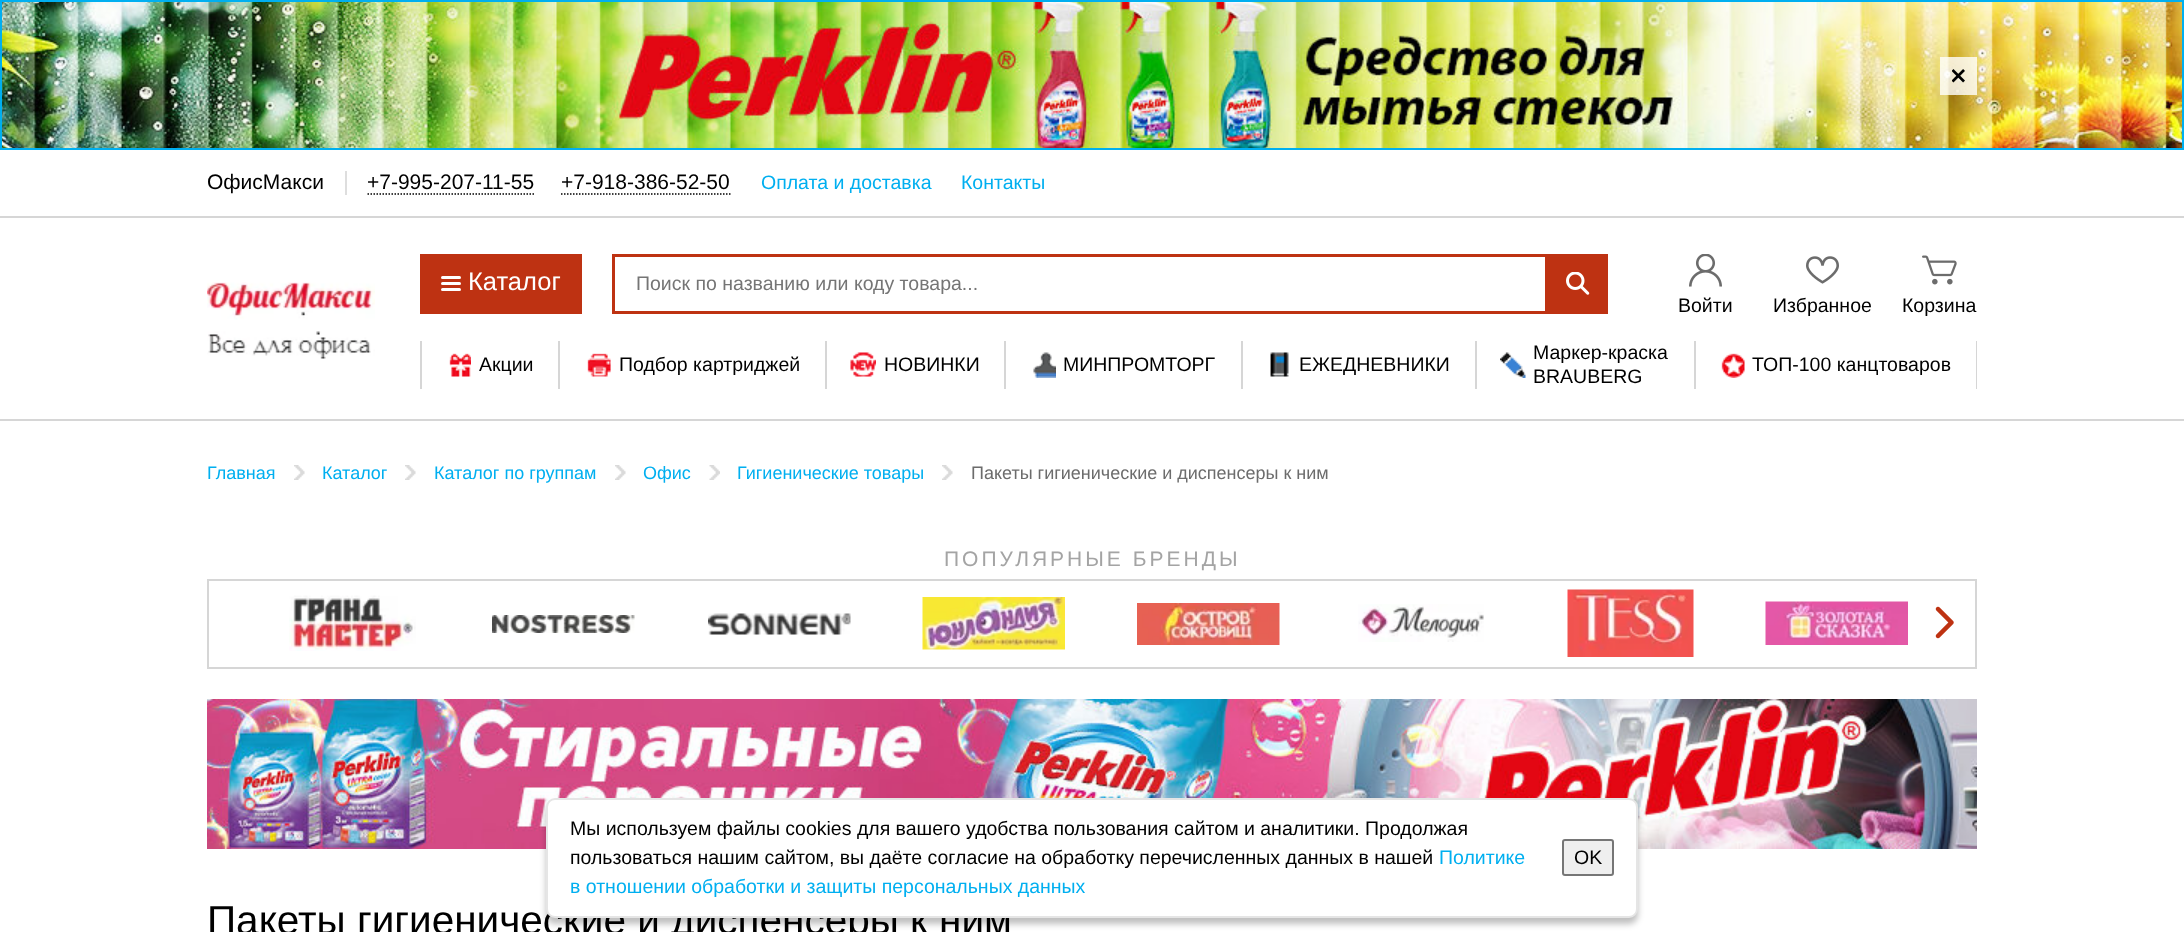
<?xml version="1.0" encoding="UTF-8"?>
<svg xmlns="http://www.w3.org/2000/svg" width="2184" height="932">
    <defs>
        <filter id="blur1" x="-50%" y="-200%" width="200%" height="500%"><feGaussianBlur stdDeviation="3"/></filter>
    </defs>
    <rect width="100%" height="100%" fill="#FFFFFF"/>
    <image x="2" y="2" width="2180" height="146" href="img_01.png"/>
    <rect x="1" y="1" width="2182" height="148" fill="none" stroke="#00AFF0" stroke-width="2"/>
    <rect x="1940" y="57" width="37" height="38" fill="#FFFFFF" fill-opacity="0.8"/>
    <image x="1952" y="69" width="13" height="14" href="img_02.png"/>
    <rect x="0" y="216" width="2184" height="2" fill="#D6D6D6"/>
    <text x="207" y="189" font-family="Liberation Sans" font-size="21" fill="#000000">ОфисМакси</text>
    <rect x="345" y="171" width="2" height="24" fill="#DEDEDE"/>
    <text x="367" y="189" font-family="Liberation Sans" font-size="21" fill="#000000">+7-995-207-11-55</text>
    <path d="M 367.5 194 H 534" fill="none" stroke="#000000" stroke-width="1.5" stroke-dasharray="1.5 1.5"/>
    <text x="561" y="189" font-family="Liberation Sans" font-size="21" fill="#000000">+7-918-386-52-50</text>
    <path d="M 561 194 H 730.5" fill="none" stroke="#000000" stroke-width="1.5" stroke-dasharray="1.5 1.5"/>
    <text x="761" y="189" font-family="Liberation Sans" font-size="19.5" fill="#00AFF0">Оплата и доставка</text>
    <text x="961" y="189" font-family="Liberation Sans" font-size="19.5" fill="#00AFF0">Контакты</text>
    <rect x="0" y="419" width="2184" height="2" fill="#D6D6D6"/>
    <image x="207" y="282" width="168" height="77" href="img_03.png"/>
    <rect x="420" y="254" width="162" height="60" fill="#BE3212"/>
    <rect x="441" y="282" width="20" height="3" rx="1.5" fill="#FFFFFF"/>
    <rect x="441" y="276" width="20" height="3" rx="1.5" fill="#FFFFFF"/>
    <rect x="441" y="288" width="20" height="3" rx="1.5" fill="#FFFFFF"/>
    <text x="468" y="290" font-family="Liberation Sans" font-size="25.5" fill="#FFFFFF">Каталог</text>
    <rect x="613.5" y="255.5" width="993" height="57" fill="none" stroke="#BE3212" stroke-width="3"/>
    <text x="636" y="290" font-family="Liberation Sans" font-size="19.5" fill="#757575">Поиск по названию или коду товара...</text>
    <rect x="1545" y="257" width="60" height="54" fill="#BE3212"/>
    <image x="1566" y="272" width="24" height="23" href="img_04.png"/>
    <image x="1689" y="254" width="33" height="33" href="img_05.png"/>
    <text x="1678" y="312" font-family="Liberation Sans" font-size="19.5" fill="#000000">Войти</text>
    <image x="1806" y="256" width="33" height="28" href="img_06.png"/>
    <text x="1773" y="312" font-family="Liberation Sans" font-size="19.5" fill="#000000">Избранное</text>
    <image x="1922" y="255" width="35" height="30" href="img_07.png"/>
    <text x="1902" y="312" font-family="Liberation Sans" font-size="19.5" fill="#000000">Корзина</text>
    <rect x="558" y="341" width="2" height="48" fill="#D6D6D6"/>
    <rect x="420" y="341" width="2" height="48" fill="#D6D6D6"/>
    <image x="449" y="353" width="22" height="24" href="img_08.png"/>
    <text x="479" y="371" font-family="Liberation Sans" font-size="19.5" fill="#000000">Акции</text>
    <rect x="825" y="341" width="2" height="48" fill="#D6D6D6"/>
    <image x="587" y="353" width="24" height="24" href="img_09.png"/>
    <text x="619" y="371" font-family="Liberation Sans" font-size="19.5" fill="#000000">Подбор картриджей</text>
    <rect x="1004" y="341" width="2" height="48" fill="#D6D6D6"/>
    <image x="850" y="352" width="26" height="25" href="img_10.png"/>
    <text x="884" y="371" font-family="Liberation Sans" font-size="19.5" fill="#000000">НОВИНКИ</text>
    <rect x="1241" y="341" width="2" height="48" fill="#D6D6D6"/>
    <image x="1033" y="352" width="23" height="26" href="img_11.png"/>
    <text x="1063" y="371" font-family="Liberation Sans" font-size="19.5" fill="#000000">МИНПРОМТОРГ</text>
    <rect x="1475" y="341" width="2" height="48" fill="#D6D6D6"/>
    <image x="1270" y="352" width="19" height="25" href="img_12.png"/>
    <text x="1299" y="371" font-family="Liberation Sans" font-size="19.5" fill="#000000">ЕЖЕДНЕВНИКИ</text>
    <rect x="1694" y="341" width="2" height="48" fill="#D6D6D6"/>
    <image x="1500" y="352" width="26" height="26" href="img_13.png"/>
    <text font-family="Liberation Sans" font-size="19.5" fill="#000000">
        <tspan x="1533" y="359">Маркер-краска</tspan>
        <tspan x="1533" y="383">BRAUBERG</tspan>
    </text>
    <rect x="1976" y="341" width="1" height="48" fill="#D6D6D6"/>
    <image x="1721" y="353" width="24" height="25" href="img_14.png"/>
    <text x="1752" y="371" font-family="Liberation Sans" font-size="19.5" fill="#000000">ТОП-100 канцтоваров</text>
    <text x="207" y="479" font-family="Liberation Sans" font-size="18" fill="#00AFF0">Главная</text>
    <image x="294" y="465" width="11" height="15" href="img_15.png"/>
    <text x="322" y="479" font-family="Liberation Sans" font-size="18" fill="#00AFF0">Каталог</text>
    <image x="405" y="465" width="11" height="15" href="img_15.png"/>
    <text x="434" y="479" font-family="Liberation Sans" font-size="18" fill="#00AFF0">Каталог по группам</text>
    <image x="615" y="465" width="11" height="15" href="img_16.png"/>
    <text x="643" y="479" font-family="Liberation Sans" font-size="18" fill="#00AFF0">Офис</text>
    <image x="709" y="465" width="11" height="15" href="img_17.png"/>
    <text x="737" y="479" font-family="Liberation Sans" font-size="18" fill="#00AFF0">Гигиенические товары</text>
    <image x="942" y="465" width="11" height="15" href="img_16.png"/>
    <text x="971" y="479" font-family="Liberation Sans" font-size="18" fill="#6C6C6C">Пакеты гигиенические и диспенсеры к ним</text>
    <text x="944" y="566" font-family="Liberation Sans" font-size="21" letter-spacing="3" fill="#A4A4A4">ПОПУЛЯРНЫЕ БРЕНДЫ</text>
    <rect x="208" y="580" width="1768" height="88" fill="none" stroke="#D6D6D6" stroke-width="2"/>
    <image x="289" y="595" width="127" height="56" href="img_18.png"/>
    <image x="492" y="615" width="143" height="18" href="img_19.png"/>
    <image x="708" y="613" width="143" height="22" href="img_20.png"/>
    <image x="922" y="597" width="143" height="53" href="img_21.png"/>
    <image x="1137" y="603" width="143" height="42" href="img_22.png"/>
    <image x="1358" y="604" width="126" height="38" href="img_23.png"/>
    <image x="1567" y="589" width="127" height="68" href="img_24.png"/>
    <image x="1765" y="601" width="143" height="44" href="img_25.png"/>
    <image x="1935" y="606" width="19" height="33" href="img_26.png"/>
    <image x="207" y="699" width="1770" height="150" href="img_27.png"/>
    <text x="207" y="934" font-family="Liberation Sans" font-size="40.5" fill="#000000">Пакеты гигиенические и диспенсеры к ним</text>
    <rect x="546" y="804" width="1092" height="120" rx="9" fill="#000000" fill-opacity="0.25" filter="url(#blur1)"/>
    <rect x="547" y="799" width="1090" height="118" rx="8" fill="#FFFFFF" stroke="#E5E5E5" stroke-width="2"/>
    <text font-family="Liberation Sans" font-size="19.5" fill="#000000">
        <tspan x="570" y="835">Мы используем файлы cookies для вашего удобства пользования сайтом и аналитики. Продолжая</tspan>
        <tspan x="570" y="864">пользоваться нашим сайтом, вы даёте согласие на обработку перечисленных данных в нашей</tspan>
    </text>
    <text x="1439" y="864" font-family="Liberation Sans" font-size="19.5" fill="#00AFF0">Политике</text>
    <text x="570" y="893" font-family="Liberation Sans" font-size="19.5" fill="#00AFF0">в отношении обработки и защиты персональных данных</text>
    <rect x="1563" y="840" width="50" height="35" rx="2" fill="#EFEFEF" stroke="#767676" stroke-width="2"/>
    <text x="1574" y="864" font-family="Liberation Sans" font-size="19.5" fill="#000000">OK</text>
</svg>
